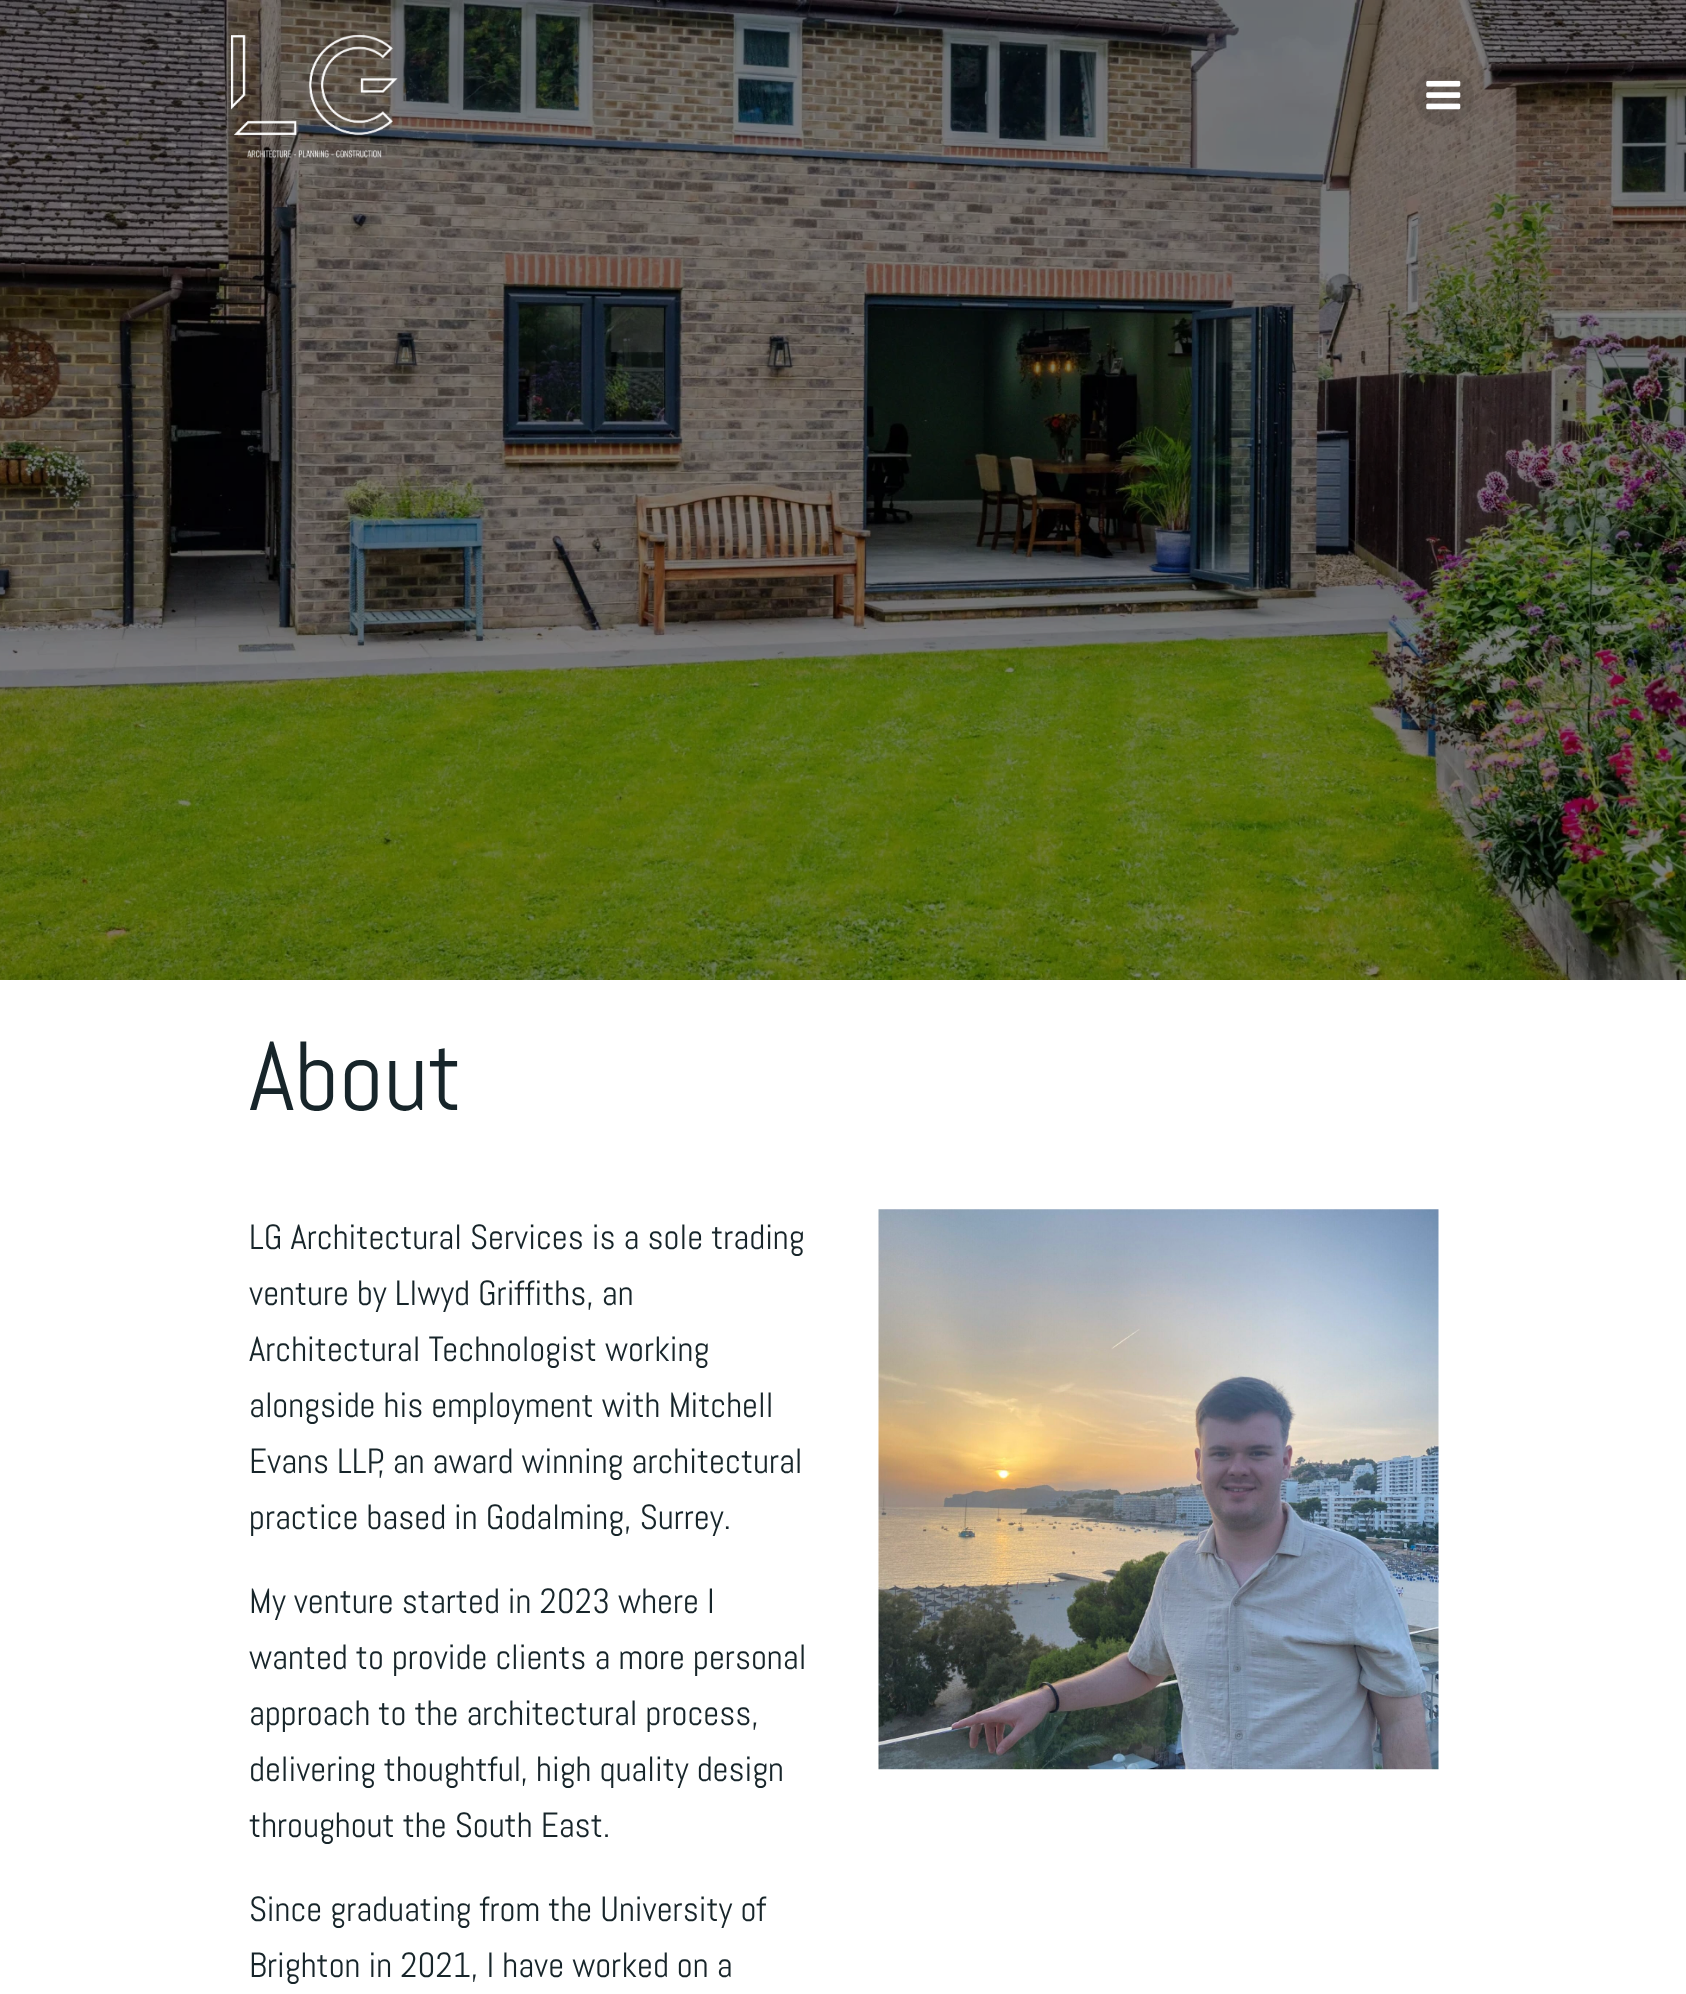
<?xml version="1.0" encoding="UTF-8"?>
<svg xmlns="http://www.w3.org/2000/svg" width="1686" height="1994">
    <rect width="100%" height="100%" fill="#FFFFFF"/>
    <image x="0" y="0" width="1686" height="980" href="img_01.png"/>
    <image x="231" y="35" width="167" height="123" href="img_02.png"/>
    <rect x="1414" y="67" width="60" height="59" rx="29.5" fill="#000000" fill-opacity="0.1"/>
    <image x="1426" y="80" width="35" height="30" href="img_03.png"/>
    <text x="249" y="1110" font-family="Abel" font-size="98" fill="#17252A">About</text>
    <text font-family="Abel" font-size="35" fill="#17252A">
        <tspan x="249" y="1249">LG Architectural Services is a sole trading</tspan>
        <tspan x="249" y="1305">venture by Llwyd Griffiths, an</tspan>
        <tspan x="249" y="1361">Architectural Technologist working</tspan>
        <tspan x="249" y="1417">alongside his employment with Mitchell</tspan>
        <tspan x="249" y="1473">Evans LLP, an award winning architectural</tspan>
        <tspan x="249" y="1529">practice based in Godalming, Surrey.</tspan>
    </text>
    <text font-family="Abel" font-size="35" fill="#17252A">
        <tspan x="249" y="1613">My venture started in 2023 where I</tspan>
        <tspan x="249" y="1669">wanted to provide clients a more personal</tspan>
        <tspan x="249" y="1725">approach to the architectural process,</tspan>
        <tspan x="249" y="1781">delivering thoughtful, high quality design</tspan>
        <tspan x="249" y="1837">throughout the South East.</tspan>
    </text>
    <text font-family="Abel" font-size="35" fill="#17252A">
        <tspan x="249" y="1921">Since graduating from the University of</tspan>
        <tspan x="249" y="1977">Brighton in 2021, I have worked on a</tspan>
    </text>
    <image x="878" y="1209" width="561" height="561" href="img_04.png"/>
</svg>
